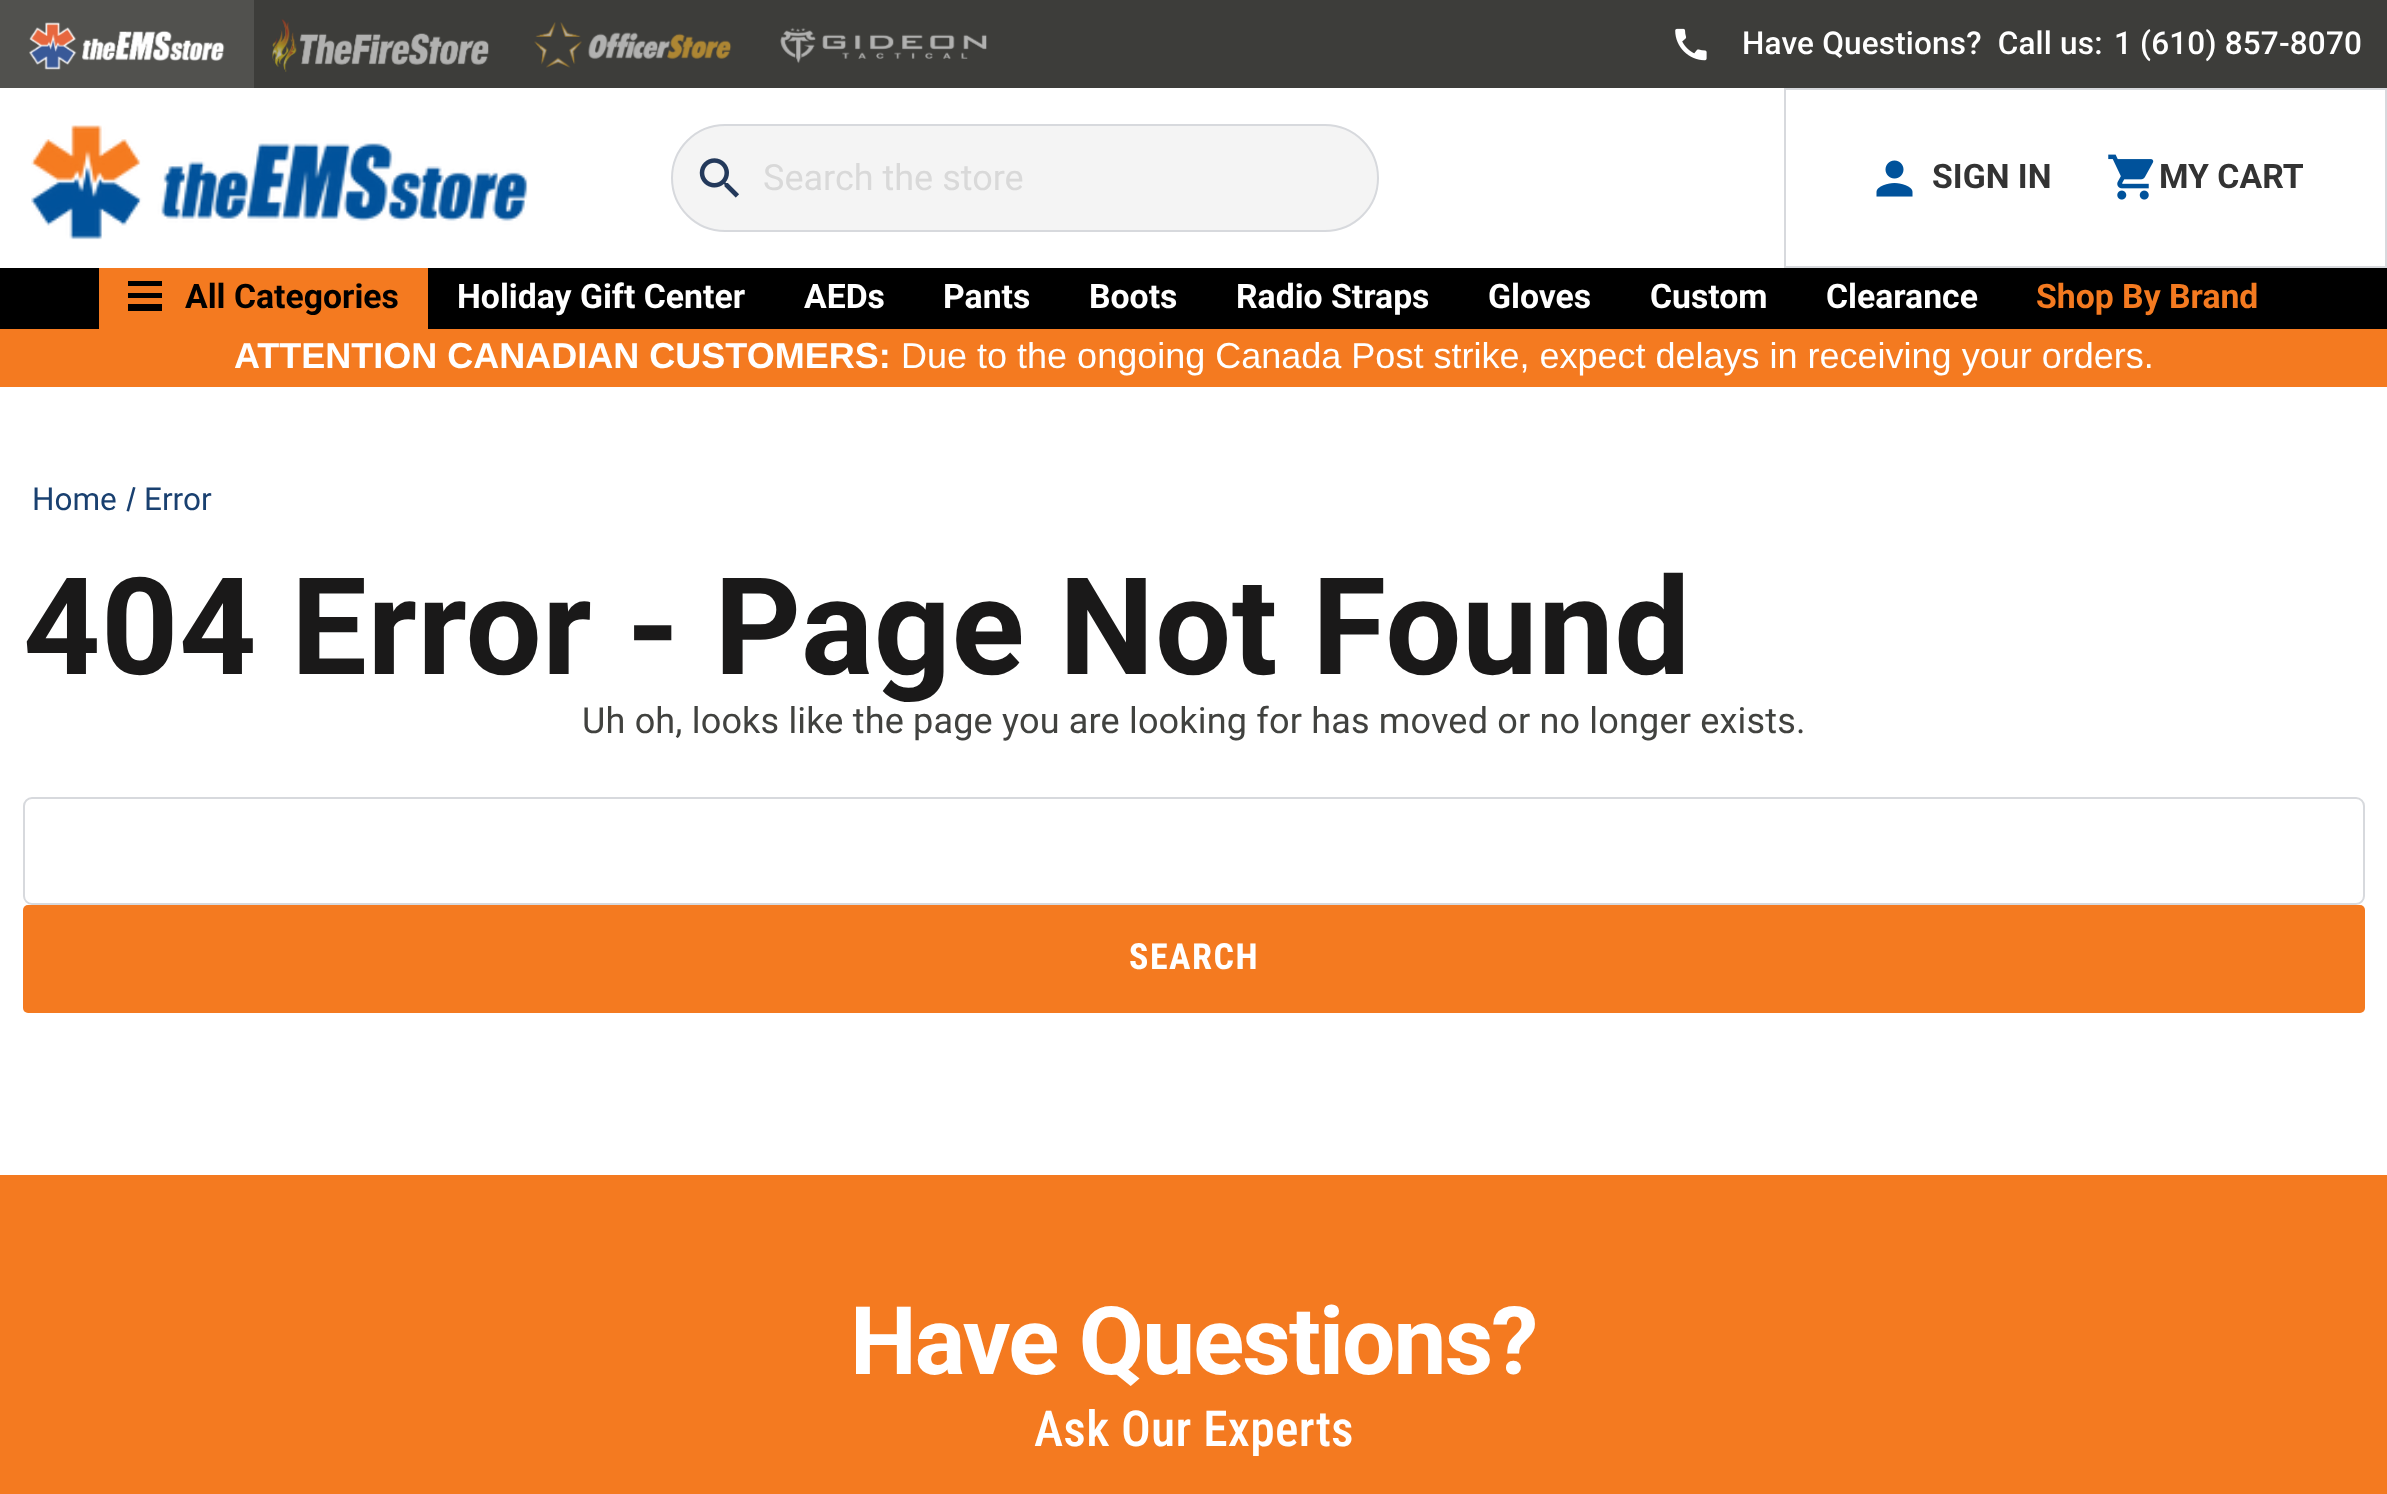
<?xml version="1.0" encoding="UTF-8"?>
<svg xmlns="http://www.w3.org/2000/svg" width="2387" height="1494">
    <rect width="100%" height="100%" fill="#FFFFFF"/>
    <rect x="254" y="0" width="2133" height="88" fill="#3D3D3A"/>
    <rect x="0" y="0" width="254" height="88" fill="#51514E"/>
    <image x="29" y="22" width="196" height="48" href="img_01.png"/>
    <image x="272" y="19" width="217" height="53" href="img_02.png"/>
    <image x="534" y="22" width="198" height="46" href="img_03.png"/>
    <image x="780" y="27" width="207" height="37" href="img_04.png"/>
    <image x="1675" y="28" width="32" height="33" href="img_05.png"/>
    <text x="1742" y="54" font-family="Roboto" font-size="31.5" font-weight="500" letter-spacing="0.18" fill="#FFFFFF" xml:space="preserve">Have Questions?  Call us:</text>
    <text x="2114" y="54" font-family="Roboto" font-size="31.5" font-weight="500" letter-spacing="0.18" fill="#FFFFFF">1 (610) 857-8070</text>
    <image x="31" y="125" width="497" height="115" href="img_06.png"/>
    <rect x="672" y="125" width="706" height="106" rx="53" fill="#F4F4F4" stroke="#D7D9DD" stroke-width="2"/>
    <image x="699" y="158" width="40" height="40" href="img_07.png"/>
    <text x="763" y="190" font-family="Roboto" font-size="36" fill="#D9D9D9">Search the store</text>
    <rect x="1785" y="89" width="601" height="178" fill="none" stroke="#D7D9DD" stroke-width="2"/>
    <image x="1876" y="160" width="37" height="37" href="img_08.png"/>
    <text x="1932" y="188" font-family="Roboto" font-size="33.75" font-weight="700" fill="#333333">SIGN IN</text>
    <image x="2108" y="154" width="46" height="46" href="img_09.png"/>
    <text x="2159" y="188" font-family="Roboto" font-size="33.75" font-weight="700" fill="#333333">MY CART</text>
    <rect x="0" y="268" width="2387" height="61" fill="#000000"/>
    <rect x="99" y="268" width="329" height="61" fill="#F47A20"/>
    <rect x="128" y="281" width="34" height="5" fill="#000000"/>
    <rect x="128" y="293" width="34" height="5" fill="#000000"/>
    <rect x="128" y="304" width="34" height="7" fill="#000000"/>
    <text x="185" y="308" font-family="Roboto" font-size="33.75" font-weight="700" fill="#000000">All Categories</text>
    <text x="457" y="308" font-family="Roboto" font-size="33.75" font-weight="700" fill="#FFFFFF">Holiday Gift Center</text>
    <text x="804" y="308" font-family="Roboto" font-size="33.75" font-weight="700" fill="#FFFFFF">AEDs</text>
    <text x="943" y="308" font-family="Roboto" font-size="33.75" font-weight="700" fill="#FFFFFF">Pants</text>
    <text x="1089" y="308" font-family="Roboto" font-size="33.75" font-weight="700" fill="#FFFFFF">Boots</text>
    <text x="1236" y="308" font-family="Roboto" font-size="33.75" font-weight="700" fill="#FFFFFF">Radio Straps</text>
    <text x="1488" y="308" font-family="Roboto" font-size="33.75" font-weight="700" fill="#FFFFFF">Gloves</text>
    <text x="1650" y="308" font-family="Roboto" font-size="33.75" font-weight="700" fill="#FFFFFF">Custom</text>
    <text x="1826" y="308" font-family="Roboto" font-size="33.75" font-weight="700" fill="#FFFFFF">Clearance</text>
    <text x="2036" y="308" font-family="Roboto" font-size="33.75" font-weight="700" fill="#F47A20">Shop By Brand</text>
    <rect x="0" y="329" width="2387" height="58" fill="#F47A20"/>
    <text x="234" y="368" font-family="Liberation Sans" font-size="36" font-weight="700" fill="#FFFFFF">ATTENTION CANADIAN CUSTOMERS:</text>
    <text x="901" y="368" font-family="Liberation Sans" font-size="36" fill="#FFFFFF">Due to the ongoing Canada Post strike, expect delays in receiving your orders.</text>
    <text x="32" y="510" font-family="Roboto" font-size="31.5" fill="#194070">Home</text>
    <path d="M 133 487 L 135.5 487.5 L 129 511.5 L 126.5 511 Z" fill="#194070"/>
    <text x="144" y="510" font-family="Roboto" font-size="31.5" fill="#194070">Error</text>
    <text x="23" y="674" font-family="Roboto" font-size="135" font-weight="700" letter-spacing="0.55" fill="#1A1919">404 Error - Page Not Found</text>
    <text x="582" y="733" font-family="Roboto" font-size="36" letter-spacing="0.18" fill="#41423F">Uh oh, looks like the page you are looking for has moved or no longer exists.</text>
    <rect x="24" y="798" width="2340" height="106" rx="8" fill="none" stroke="#D7D9DD" stroke-width="2"/>
    <rect x="23" y="905" width="2342" height="108" rx="5" fill="#F47A20"/>
    <text x="1129" y="969" font-family="Roboto Condensed" font-size="36" font-weight="700" letter-spacing="1.5" fill="#FFFFFF">SEARCH</text>
    <rect x="0" y="1175" width="2387" height="319" fill="#F47A20"/>
    <text x="850" y="1374" font-family="Roboto" font-size="94.5" font-weight="700" letter-spacing="-1.9" fill="#FFFFFF">Have Questions?</text>
    <text x="1034" y="1446" font-family="Roboto Condensed" font-size="49.5" font-weight="500" letter-spacing="0.25" fill="#FFFFFF">Ask Our Experts</text>
</svg>
